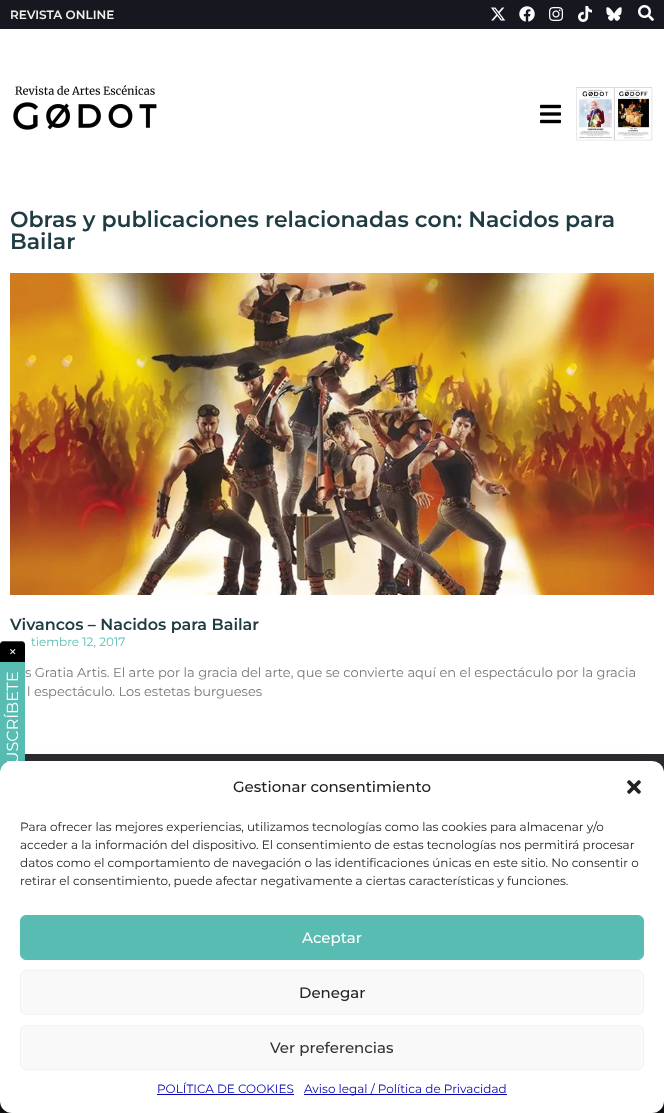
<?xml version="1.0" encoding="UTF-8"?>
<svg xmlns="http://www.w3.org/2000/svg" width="664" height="1113">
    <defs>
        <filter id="blur1" x="-50%" y="-200%" width="200%" height="500%"><feGaussianBlur stdDeviation="3"/></filter>
        <filter id="blur2" x="-50%" y="-200%" width="200%" height="500%"><feGaussianBlur stdDeviation="10"/></filter>
    </defs>
    <rect width="100%" height="100%" fill="#FFFFFF"/>
    <rect x="0" y="0" width="664" height="29" fill="#171720"/>
    <text x="10" y="19" font-family="Montserrat" font-size="12" font-weight="600" fill="#F1F3ED">REVISTA ONLINE</text>
    <image x="491" y="7" width="15" height="14" href="img_01.png"/>
    <image x="519" y="6" width="16" height="16" href="img_02.png"/>
    <image x="549" y="7" width="14" height="14" href="img_03.png"/>
    <image x="578" y="6" width="14" height="16" href="img_04.png"/>
    <image x="606" y="7" width="16" height="14" href="img_05.png"/>
    <image x="638" y="5" width="16" height="16" href="img_06.png"/>
    <image x="13" y="85" width="144" height="45" href="img_07.png"/>
    <image x="540" y="104" width="21" height="20" href="img_08.png"/>
    <image x="576" y="87" width="77" height="54" href="img_09.png"/>
    <text font-family="Montserrat" font-size="22" font-weight="600" fill="#203C43">
        <tspan x="10" y="227">Obras y publicaciones relacionadas con: Nacidos para</tspan>
        <tspan x="10" y="249">Bailar</tspan>
    </text>
    <image x="10" y="273" width="644" height="322" href="img_10.png"/>
    <text x="10" y="630" font-family="Montserrat" font-size="16" font-weight="600" fill="#203C43">Vivancos – Nacidos para Bailar</text>
    <text x="31" y="646" font-family="Montserrat" font-size="12" fill="#58BCB3">tiembre 12, 2017</text>
    <text x="25" y="677" font-family="Montserrat" font-size="13" fill="#777777">s Gratia Artis. El arte por la gracia del arte, que se convierte aquí en el espectáculo por la gracia</text>
    <text x="27" y="696" font-family="Montserrat" font-size="13" fill="#777777">l espectáculo. Los estetas burgueses</text>
    <path d="M 0 776 V 644 C 0 643 1 641 3 641 H 22 C 24 641 25 643 25 644 V 776 C 25 778 24 779 22 779 H 3 C 1 779 0 778 0 776 Z" fill="#58BCB3"/>
    <path d="M 0 662 V 644.5 C 0 643 1.5 641.5 3 641.5 H 22 C 23.5 641.5 25 643 25 644.5 V 662 Z" fill="#000000"/>
    <text x="18" y="656" transform="rotate(-90 18 656)" font-family="Montserrat" font-size="15" fill="#FFFFFF">×</text>
    <text x="18" y="774" transform="rotate(-90 18 774)" font-family="Montserrat" font-size="16" fill="#FFFFFF">SUSCRÍBETE</text>
    <rect x="25" y="754" width="639" height="19" fill="#2A2A2F"/>
    <rect x="0" y="1101" width="664" height="12" fill="#141316"/>
    <rect x="0" y="767" width="664" height="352" rx="12" fill="#000000" fill-opacity="0.23" filter="url(#blur1)"/>
    <rect x="0" y="771" width="664" height="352" rx="12" fill="#000000" fill-opacity="0.19" filter="url(#blur2)"/>
    <rect x="0" y="761" width="664" height="352" rx="12" fill="#FFFFFF"/>
    <text x="233" y="792" font-family="Montserrat" font-size="15" font-weight="500" fill="#222222">Gestionar consentimiento</text>
    <image x="627" y="780" width="14" height="14" href="img_11.png"/>
    <text font-family="Montserrat" font-size="12" fill="#222222">
        <tspan x="20" y="831">Para ofrecer las mejores experiencias, utilizamos tecnologías como las cookies para almacenar y/o</tspan>
        <tspan x="20" y="849">acceder a la información del dispositivo. El consentimiento de estas tecnologías nos permitirá procesar</tspan>
        <tspan x="20" y="867">datos como el comportamiento de navegación o las identificaciones únicas en este sitio. No consentir o</tspan>
        <tspan x="20" y="885">retirar el consentimiento, puede afectar negativamente a ciertas características y funciones.</tspan>
    </text>
    <rect x="20.5" y="915.5" width="623" height="44" rx="5.5" fill="#58BCB3" stroke="#58BCB3"/>
    <text x="302" y="943" font-family="Montserrat" font-size="15" font-weight="500" fill="#FFFFFF">Aceptar</text>
    <rect x="20.5" y="970.5" width="623" height="44" rx="5.5" fill="#F9F9F9" stroke="#F2F2F2"/>
    <text x="299" y="998" font-family="Montserrat" font-size="15" font-weight="500" fill="#222222">Denegar</text>
    <rect x="20.5" y="1025.5" width="623" height="44" rx="5.5" fill="#F9F9F9" stroke="#F2F2F2"/>
    <text x="270" y="1053" font-family="Montserrat" font-size="15" font-weight="500" fill="#333333">Ver preferencias</text>
    <text x="157" y="1093" font-family="Montserrat" font-size="12" fill="#0404B5">POLÍTICA DE COOKIES</text>
    <rect x="157" y="1094" width="137" height="1" fill="#0404B5"/>
    <rect x="304" y="1094" width="203" height="1" fill="#0404B5"/>
    <text x="304" y="1093" font-family="Montserrat" font-size="12" fill="#0404B5">Aviso legal / Política de Privacidad</text>
</svg>
